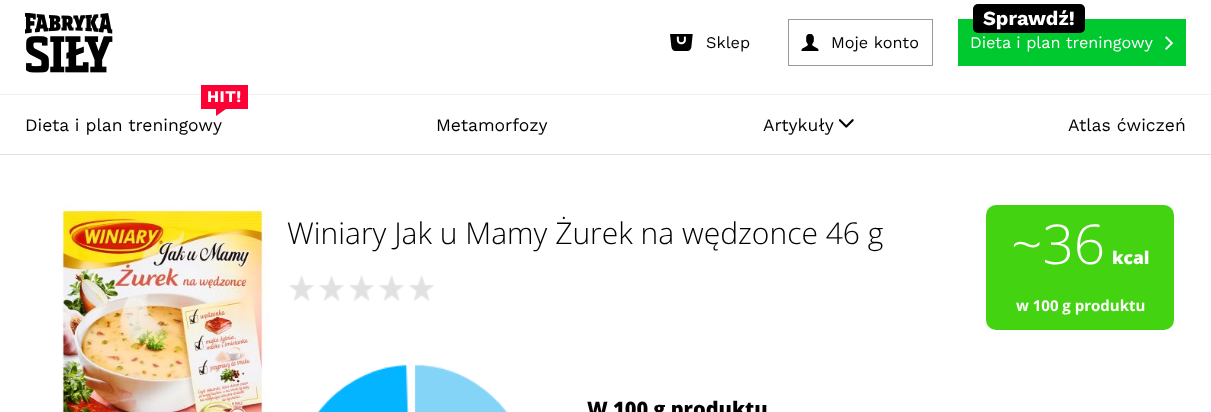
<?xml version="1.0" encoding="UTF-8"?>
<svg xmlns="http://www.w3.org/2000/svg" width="1211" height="412">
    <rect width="100%" height="100%" fill="#FFFFFF"/>
    <rect x="0" y="154" width="1211" height="1" fill="#DFDFDF"/>
    <image x="25" y="13" width="88" height="60" href="img_01.png"/>
    <image x="670" y="34" width="23" height="17" href="img_02.png"/>
    <text x="706" y="48" font-family="Work Sans" font-size="16.25" fill="#000000">Sklep</text>
    <rect x="788.5" y="19.5" width="144" height="46" fill="none" stroke="#999999"/>
    <image x="801" y="34" width="18" height="17" href="img_03.png"/>
    <text x="831" y="48" font-family="Work Sans" font-size="16.25" fill="#000000">Moje konto</text>
    <rect x="958" y="19" width="228" height="47" fill="#00C82F"/>
    <rect x="973" y="4" width="112" height="29" rx="5" fill="#000000"/>
    <text x="983" y="25" font-family="Work Sans" font-size="20" font-weight="700" fill="#FFFFFF">Sprawdź!</text>
    <text x="970" y="48" font-family="Work Sans" font-size="16.25" fill="#FFFFFF">Dieta i plan treningowy</text>
    <image x="1165" y="36" width="9" height="14" href="img_04.png"/>
    <rect x="0" y="94" width="1211" height="1" fill="#F2F2F2"/>
    <rect x="201" y="85" width="47" height="24" fill="#FF0036"/>
    <text x="207" y="102" font-family="Work Sans" font-size="16.25" font-weight="700" letter-spacing="0.5" fill="#FFFFFF">HIT!</text>
    <path d="M 216 109 H 226 L 216 116 Z" fill="#FF0036"/>
    <text x="25" y="131" font-family="Work Sans" font-size="17.5" fill="#000000">Dieta i plan treningowy</text>
    <text x="436" y="131" font-family="Work Sans" font-size="17.5" fill="#000000">Metamorfozy</text>
    <text x="763" y="131" font-family="Work Sans" font-size="17.5" fill="#000000">Artykuły</text>
    <image x="839" y="119" width="15" height="9" href="img_05.png"/>
    <text x="1068" y="131" font-family="Work Sans" font-size="17.5" fill="#000000">Atlas ćwiczeń</text>
    <image x="61" y="205" width="208" height="207" href="img_06.png"/>
    <text x="287" y="244" font-family="Open Sans" font-size="30" font-weight="300" fill="#000000">Winiary Jak u Mamy Żurek na wędzonce 46 g</text>
    <rect x="986" y="205" width="188" height="125" rx="10" fill="#43D310"/>
    <text x="1011" y="264" font-family="Open Sans" font-size="55" font-weight="300" fill="#FFFFFF">~36</text>
    <text x="1112" y="264" font-family="Open Sans" font-size="17.5" font-weight="800" fill="#FFFFFF">kcal</text>
    <text x="1016" y="311" font-family="Open Sans" font-size="15" font-weight="700" fill="#FFFFFF">w 100 g produktu</text>
    <image x="289" y="275" width="25" height="26" href="img_07.png"/>
    <image x="319" y="275" width="25" height="26" href="img_08.png"/>
    <image x="349" y="275" width="25" height="26" href="img_07.png"/>
    <image x="379" y="275" width="25" height="26" href="img_07.png"/>
    <image x="409" y="275" width="25" height="26" href="img_07.png"/>
    <image x="317" y="364" width="191" height="48" href="img_09.png"/>
    <text x="587" y="416" font-family="Open Sans" font-size="20" font-weight="800" fill="#000000">W 100 g produktu</text>
</svg>
